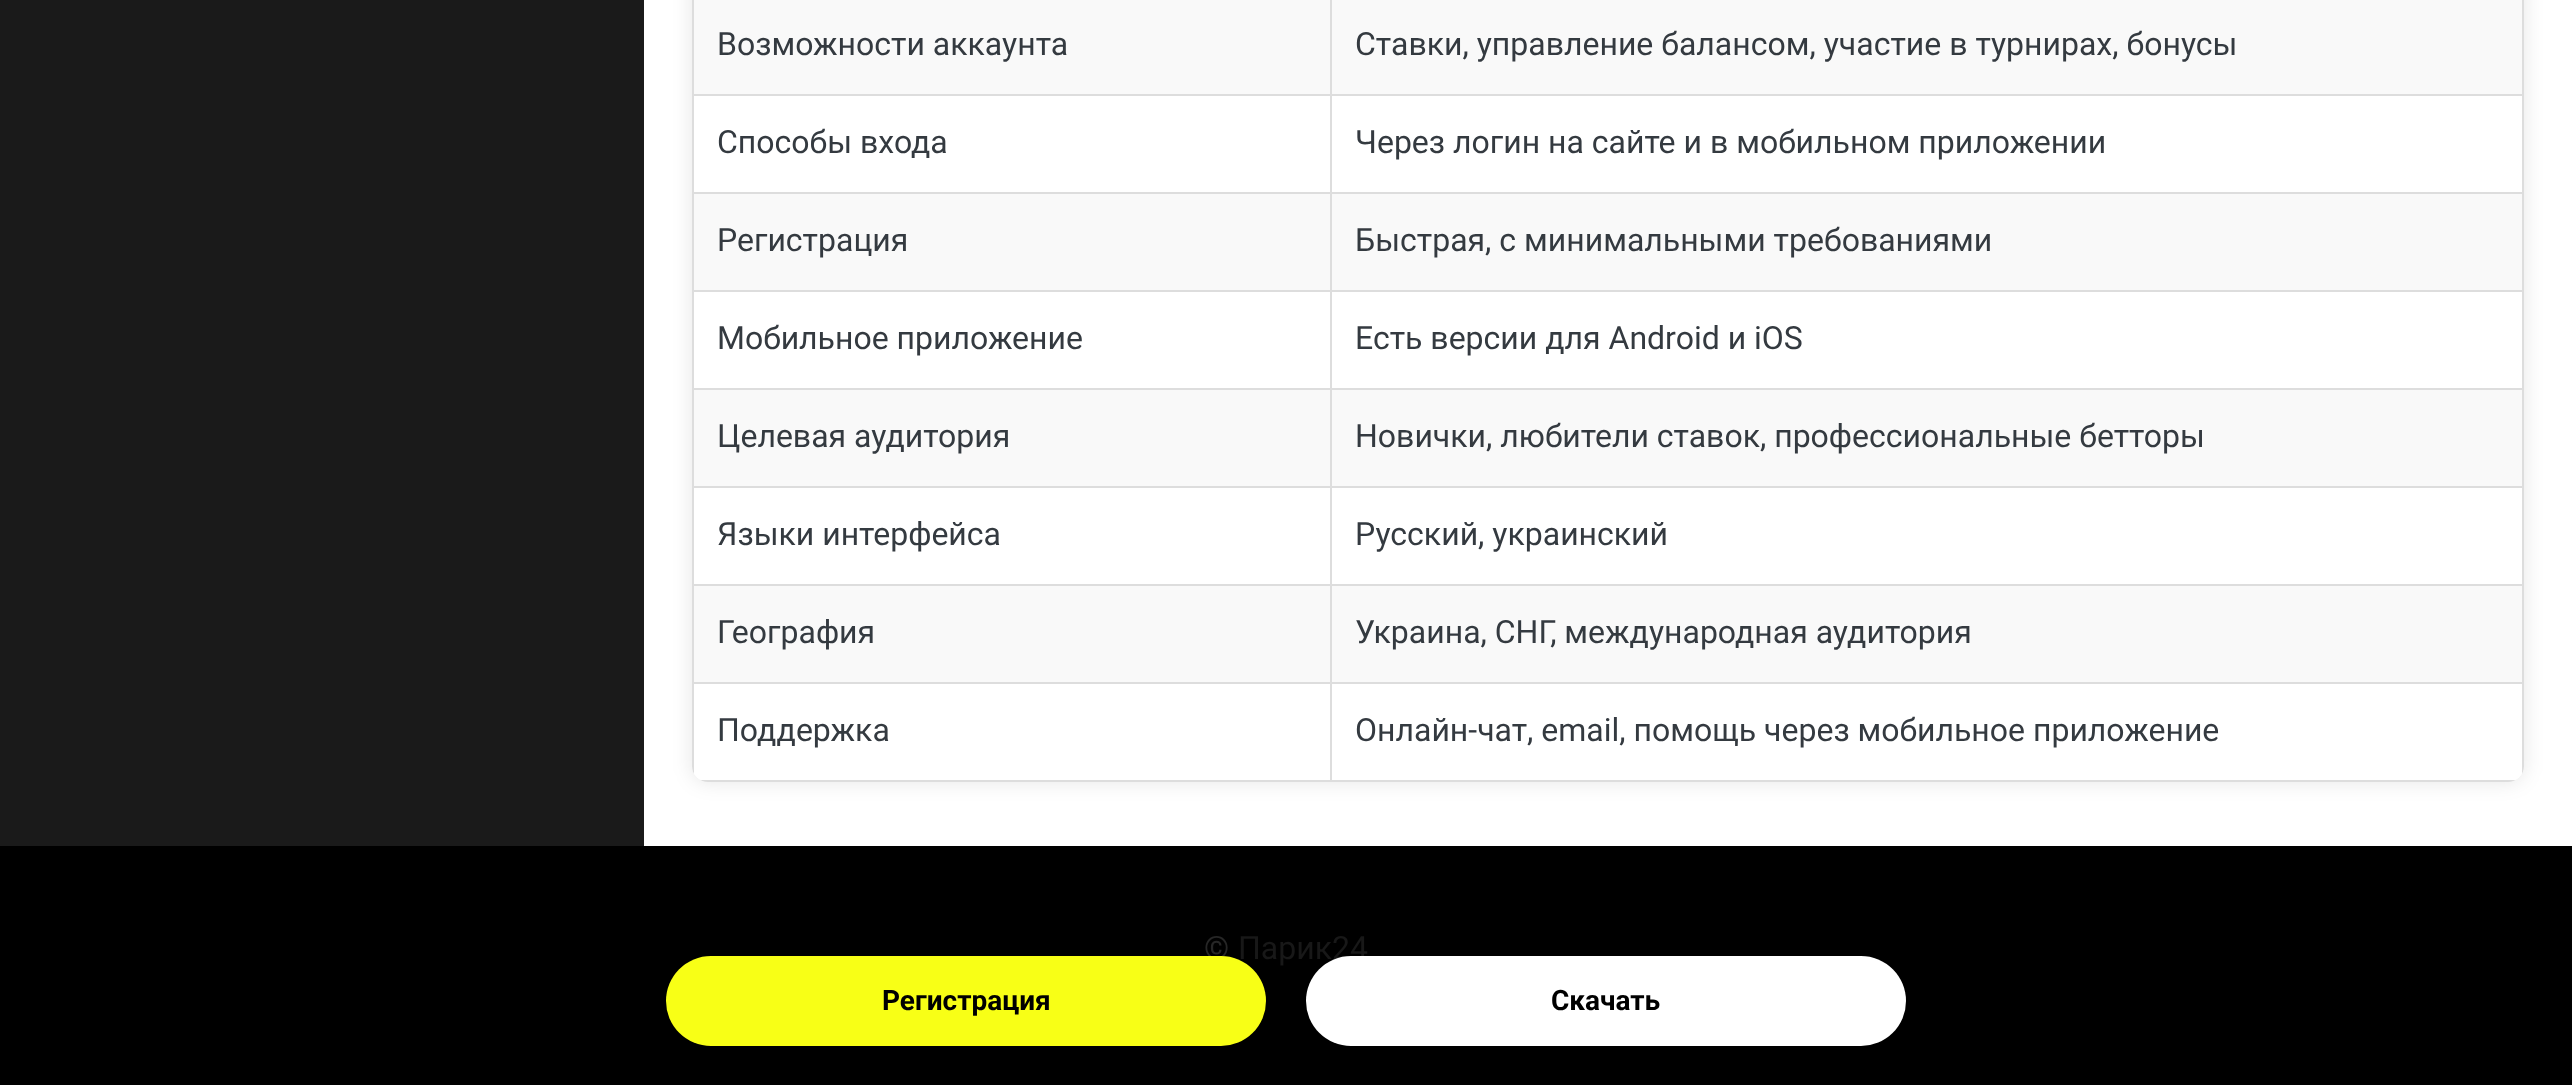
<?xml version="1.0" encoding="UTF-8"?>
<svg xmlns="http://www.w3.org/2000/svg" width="2572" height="1085">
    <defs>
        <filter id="blur1" x="-50%" y="-200%" width="200%" height="500%"><feGaussianBlur stdDeviation="10"/></filter>
        <clipPath id="clip1"><rect x="692" y="-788" width="1832" height="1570" rx="16"/></clipPath>
    </defs>
    <rect width="100%" height="100%" fill="#FFFFFF"/>
    <rect x="0" y="0" width="644" height="846" fill="#1A1A1A"/>
    <rect x="692" y="-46" width="1832" height="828" rx="16" fill="#000000" fill-opacity="0.1" filter="url(#blur1)"/>
    <rect x="692" y="-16" width="1832" height="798" rx="16" fill="#FFFFFF"/>
    <rect x="694" y="0" width="1828" height="94" fill="#F9F9F9"/>
    <text x="717" y="55" font-family="Roboto" font-size="32" fill="#343A40">Возможности аккаунта</text>
    <rect x="1330" y="94" width="1194" height="2" fill="#DDDDDD"/>
    <rect x="1330" y="192" width="1194" height="2" fill="#DDDDDD"/>
    <rect x="694" y="194" width="1828" height="96" fill="#F9F9F9"/>
    <rect x="1330" y="290" width="1194" height="2" fill="#DDDDDD"/>
    <rect x="1330" y="388" width="1194" height="2" fill="#DDDDDD"/>
    <rect x="694" y="390" width="1828" height="96" fill="#F9F9F9"/>
    <rect x="1330" y="486" width="1194" height="2" fill="#DDDDDD"/>
    <rect x="1330" y="584" width="1194" height="2" fill="#DDDDDD"/>
    <rect x="694" y="586" width="1828" height="96" fill="#F9F9F9"/>
    <rect x="1330" y="682" width="1194" height="2" fill="#DDDDDD"/>
    <g clip-path="url(#clip1)">
        <rect x="2522" y="682" width="2" height="100" fill="#DDDDDD"/>
        <rect x="1330" y="780" width="1194" height="2" fill="#DDDDDD"/>
    </g>
    <rect x="1330" y="682" width="2" height="100" fill="#DDDDDD"/>
    <rect x="692" y="682" width="640" height="2" fill="#DDDDDD"/>
    <rect x="1330" y="584" width="2" height="100" fill="#DDDDDD"/>
    <rect x="692" y="584" width="640" height="2" fill="#DDDDDD"/>
    <rect x="1330" y="486" width="2" height="100" fill="#DDDDDD"/>
    <rect x="692" y="486" width="640" height="2" fill="#DDDDDD"/>
    <rect x="1330" y="388" width="2" height="100" fill="#DDDDDD"/>
    <rect x="692" y="388" width="640" height="2" fill="#DDDDDD"/>
    <rect x="1330" y="290" width="2" height="100" fill="#DDDDDD"/>
    <rect x="692" y="290" width="640" height="2" fill="#DDDDDD"/>
    <rect x="1330" y="192" width="2" height="100" fill="#DDDDDD"/>
    <rect x="692" y="192" width="640" height="2" fill="#DDDDDD"/>
    <rect x="1330" y="94" width="2" height="100" fill="#DDDDDD"/>
    <rect x="692" y="94" width="640" height="2" fill="#DDDDDD"/>
    <rect x="1330" y="0" width="2" height="96" fill="#DDDDDD"/>
    <text x="1355" y="55" font-family="Roboto" font-size="32" fill="#343A40">Ставки, управление балансом, участие в турнирах, бонусы</text>
    <g clip-path="url(#clip1)">
        <rect x="692" y="780" width="640" height="2" fill="#DDDDDD"/>
        <rect x="692" y="682" width="2" height="100" fill="#DDDDDD"/>
    </g>
    <rect x="692" y="584" width="2" height="100" fill="#DDDDDD"/>
    <rect x="692" y="486" width="2" height="100" fill="#DDDDDD"/>
    <rect x="692" y="388" width="2" height="100" fill="#DDDDDD"/>
    <rect x="692" y="290" width="2" height="100" fill="#DDDDDD"/>
    <rect x="692" y="192" width="2" height="100" fill="#DDDDDD"/>
    <rect x="692" y="0" width="2" height="194" fill="#DDDDDD"/>
    <text x="717" y="153" font-family="Roboto" font-size="32" fill="#343A40">Способы входа</text>
    <rect x="2522" y="584" width="2" height="100" fill="#DDDDDD"/>
    <rect x="2522" y="486" width="2" height="100" fill="#DDDDDD"/>
    <rect x="2522" y="388" width="2" height="100" fill="#DDDDDD"/>
    <rect x="2522" y="290" width="2" height="100" fill="#DDDDDD"/>
    <rect x="2522" y="192" width="2" height="100" fill="#DDDDDD"/>
    <rect x="2522" y="0" width="2" height="194" fill="#DDDDDD"/>
    <text x="1355" y="153" font-family="Roboto" font-size="32" fill="#343A40">Через логин на сайте и в мобильном приложении</text>
    <text x="717" y="251" font-family="Roboto" font-size="32" fill="#343A40">Регистрация</text>
    <text x="1355" y="251" font-family="Roboto" font-size="32" fill="#343A40">Быстрая, с минимальными требованиями</text>
    <text x="717" y="349" font-family="Roboto" font-size="32" fill="#343A40">Мобильное приложение</text>
    <text x="1355" y="349" font-family="Roboto" font-size="32" fill="#343A40">Есть версии для Android и iOS</text>
    <text x="717" y="447" font-family="Roboto" font-size="32" fill="#343A40">Целевая аудитория</text>
    <text x="1355" y="447" font-family="Roboto" font-size="32" fill="#343A40">Новички, любители ставок, профессиональные бетторы</text>
    <text x="717" y="545" font-family="Roboto" font-size="32" fill="#343A40">Языки интерфейса</text>
    <text x="1355" y="545" font-family="Roboto" font-size="32" fill="#343A40">Русский, украинский</text>
    <text x="717" y="643" font-family="Roboto" font-size="32" fill="#343A40">География</text>
    <text x="1355" y="643" font-family="Roboto" font-size="32" fill="#343A40">Украина, СНГ, международная аудитория</text>
    <text x="717" y="741" font-family="Roboto" font-size="32" fill="#343A40">Поддержка</text>
    <text x="1355" y="741" font-family="Roboto" font-size="32" fill="#343A40">Онлайн-чат, email, помощь через мобильное приложение</text>
    <rect x="0" y="846" width="2572" height="239" fill="#000000"/>
    <text x="1204" y="959" font-family="Roboto" font-size="32" fill="#262626">©</text>
    <text x="1238" y="959" font-family="Roboto" font-size="32" fill="#181818">Парик24</text>
    <rect x="666" y="956" width="600" height="90" rx="45" fill="#F8FF16"/>
    <text x="882" y="1010" font-family="Roboto" font-size="28" font-weight="700" fill="#000000">Регистрация</text>
    <rect x="1306" y="956" width="600" height="90" rx="45" fill="#FFFFFF"/>
    <text x="1551" y="1010" font-family="Roboto" font-size="28" font-weight="700" fill="#000000">Скачать</text>
</svg>
